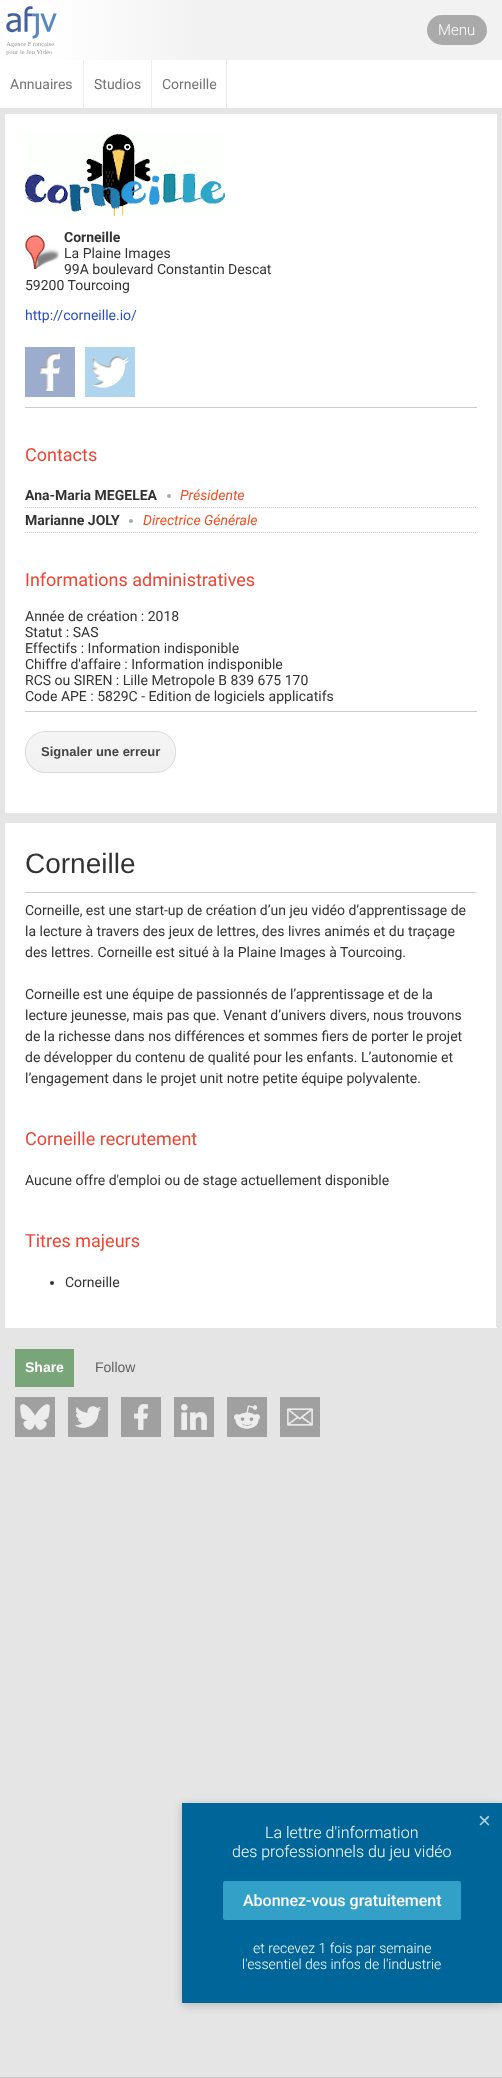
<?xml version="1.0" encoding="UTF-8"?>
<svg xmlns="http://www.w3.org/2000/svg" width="502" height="2078">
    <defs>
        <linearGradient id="g1" gradientUnits="userSpaceOnUse" x1="0" y1="30" x2="201" y2="30"><stop offset="0" stop-color="#FEFEFE"/><stop offset="0.3" stop-color="#FEFEFE"/><stop offset="1" stop-color="#F2F2F2"/></linearGradient>
        <clipPath id="clip1"><rect x="25" y="731" width="151" height="42" rx="20"/></clipPath>
        <linearGradient id="g2" gradientUnits="userSpaceOnUse" x1="26" y1="692" x2="26" y2="732"><stop offset="0" stop-color="#F5F5F5"/><stop offset="1" stop-color="#F1F1F1"/></linearGradient>
        <linearGradient id="g3" gradientUnits="userSpaceOnUse" x1="26" y1="732" x2="26" y2="772"><stop offset="0" stop-color="#F5F5F5"/><stop offset="1" stop-color="#F1F1F1"/></linearGradient>
        <linearGradient id="g4" gradientUnits="userSpaceOnUse" x1="26" y1="772" x2="26" y2="812"><stop offset="0" stop-color="#F5F5F5"/><stop offset="1" stop-color="#F1F1F1"/></linearGradient>
        <filter id="blur1" x="-50%" y="-200%" width="200%" height="500%"><feGaussianBlur stdDeviation="5"/></filter>
    </defs>
    <rect width="100%" height="100%" fill="#E5E5E5"/>
    <rect x="201" y="0" width="301" height="60" fill="#F2F2F2"/>
    <rect x="0" y="0" width="201" height="60" fill="url(#g1)"/>
    <image x="6" y="6" width="51" height="49" href="img_01.png"/>
    <rect x="427" y="15" width="60" height="30" rx="15" fill="#AAAAAA"/>
    <text x="438" y="35" font-family="Roboto" font-size="15" font-weight="300" fill="#FFFFFF">Menu</text>
    <rect x="0" y="60" width="502" height="48" fill="#FFFFFF"/>
    <rect x="83" y="60" width="1" height="48" fill="#EEEEEE"/>
    <text x="10" y="89" font-family="Roboto" font-size="14" fill="#737373">Annuaires</text>
    <rect x="151" y="60" width="1" height="48" fill="#EEEEEE"/>
    <text x="94" y="89" font-family="Roboto" font-size="14" fill="#737373">Studios</text>
    <rect x="226" y="60" width="1" height="48" fill="#EEEEEE"/>
    <text x="162" y="89" font-family="Roboto" font-size="14" fill="#737373">Corneille</text>
    <rect x="5" y="114" width="492" height="699" fill="#FFFFFF"/>
    <image x="25" y="134" width="200" height="82" href="img_02.png"/>
    <image x="25" y="235" width="34" height="34" href="img_03.png"/>
    <text x="64" y="242" font-family="Roboto" font-size="14" font-weight="700" fill="#333333">Corneille</text>
    <text font-family="Roboto" font-size="14" fill="#333333">
        <tspan x="64" y="258">La Plaine Images</tspan>
        <tspan x="64" y="274">99A boulevard Constantin Descat</tspan>
    </text>
    <text x="25" y="290" font-family="Roboto" font-size="14" fill="#333333">59200 Tourcoing</text>
    <text x="25" y="320" font-family="Roboto" font-size="14" fill="#284EC0">http://corneille.io/</text>
    <image x="25" y="347" width="50" height="50" href="img_04.png"/>
    <image x="85" y="347" width="50" height="50" href="img_05.png"/>
    <rect x="25" y="407" width="452" height="1" fill="#CCCCCC"/>
    <text x="25" y="461" font-family="Roboto" font-size="18" fill="#EE4433">Contacts</text>
    <path d="M 25 507.5 H 477" fill="none" stroke="#CCCCCC" stroke-dasharray="1 1"/>
    <text x="25" y="500" font-family="Roboto" font-size="14" font-weight="700" fill="#333333">Ana-Maria MEGELEA</text>
    <circle cx="169" cy="496" r="2" fill="#AAAAAA"/>
    <text x="180" y="500" font-family="Roboto" font-size="14" font-style="italic" fill="#EE5023">Présidente</text>
    <path d="M 25 532.5 H 477" fill="none" stroke="#CCCCCC" stroke-dasharray="1 1"/>
    <text x="25" y="525" font-family="Roboto" font-size="14" font-weight="700" fill="#333333">Marianne JOLY</text>
    <circle cx="131" cy="521" r="2" fill="#AAAAAA"/>
    <text x="143" y="525" font-family="Roboto" font-size="14" font-style="italic" fill="#EE5023">Directrice Générale</text>
    <text x="25" y="586" font-family="Roboto" font-size="18" fill="#EE4433">Informations administratives</text>
    <text font-family="Roboto" font-size="14" fill="#333333">
        <tspan x="25" y="621">Année de création : 2018</tspan>
        <tspan x="25" y="637">Statut : SAS</tspan>
        <tspan x="25" y="653">Effectifs : Information indisponible</tspan>
        <tspan x="25" y="669">Chiffre d'affaire : Information indisponible</tspan>
        <tspan x="25" y="685">RCS ou SIREN : Lille Metropole B 839 675 170</tspan>
        <tspan x="25" y="701">Code APE : 5829C - Edition de logiciels applicatifs</tspan>
    </text>
    <rect x="25" y="711" width="452" height="1" fill="#CCCCCC"/>
    <g clip-path="url(#clip1)">
        <rect x="39" y="731" width="123" height="1" fill="url(#g2)"/>
        <rect x="25" y="732" width="151" height="40" fill="url(#g3)"/>
        <rect x="39" y="772" width="123" height="1" fill="url(#g4)"/>
    </g>
    <rect x="25.5" y="731.5" width="150" height="41" rx="19.5" fill="none" stroke="#000000" stroke-opacity="0.1"/>
    <text x="41" y="756" font-family="Liberation Sans" font-size="13" font-weight="700" fill="#444444">Signaler une erreur</text>
    <rect x="5" y="823" width="492" height="505" fill="#FFFFFF"/>
    <rect x="496" y="823" width="1" height="504" fill="#E5E5E5"/>
    <text x="25" y="873" font-family="Liberation Sans" font-size="28" fill="#333333">Corneille</text>
    <rect x="25" y="892" width="451" height="1" fill="#CCCCCC"/>
    <text font-family="Roboto" font-size="14" fill="#333333">
        <tspan x="25" y="915">Corneille, est une start-up de création d’un jeu vidéo d’apprentissage de</tspan>
        <tspan x="25" y="936">la lecture à travers des jeux de lettres, des livres animés et du traçage</tspan>
        <tspan x="25" y="957">des lettres. Corneille est situé à la Plaine Images à Tourcoing.</tspan>
    </text>
    <text font-family="Roboto" font-size="14" fill="#333333">
        <tspan x="25" y="999">Corneille est une équipe de passionnés de l’apprentissage et de la</tspan>
        <tspan x="25" y="1020">lecture jeunesse, mais pas que. Venant d’univers divers, nous trouvons</tspan>
        <tspan x="25" y="1041">de la richesse dans nos différences et sommes fiers de porter le projet</tspan>
        <tspan x="25" y="1062">de développer du contenu de qualité pour les enfants. L’autonomie et</tspan>
        <tspan x="25" y="1083">l’engagement dans le projet unit notre petite équipe polyvalente.</tspan>
    </text>
    <text x="25" y="1145" font-family="Roboto" font-size="18" fill="#EE4433">Corneille recrutement</text>
    <text x="25" y="1185" font-family="Roboto" font-size="14" fill="#333333">Aucune offre d'emploi ou de stage actuellement disponible</text>
    <text x="25" y="1247" font-family="Roboto" font-size="18" fill="#EE4433">Titres majeurs</text>
    <circle cx="52" cy="1283" r="2" fill="#333333"/>
    <text x="65" y="1287" font-family="Roboto" font-size="14" fill="#333333">Corneille</text>
    <rect x="15" y="1349" width="59" height="38" fill="#79A679"/>
    <text x="25" y="1372" font-family="Liberation Sans" font-size="14" font-weight="700" fill="#FFFFFF">Share</text>
    <image x="15" y="1397" width="40" height="40" href="img_06.png"/>
    <image x="68" y="1397" width="40" height="40" href="img_07.png"/>
    <image x="121" y="1397" width="40" height="40" href="img_08.png"/>
    <image x="174" y="1397" width="40" height="40" href="img_09.png"/>
    <image x="227" y="1397" width="40" height="40" href="img_10.png"/>
    <image x="280" y="1397" width="40" height="40" href="img_11.png"/>
    <text x="95" y="1372" font-family="Liberation Sans" font-size="14" fill="#5F5F5F">Follow</text>
    <rect x="182" y="1805" width="320" height="200" fill="#000000" fill-opacity="0.2" filter="url(#blur1)"/>
    <rect x="182" y="1803" width="320" height="200" fill="#006699"/>
    <text x="478" y="1828" font-family="Liberation Sans" font-size="22" fill="#B3D1E0">×</text>
    <text x="265" y="1838" font-family="Roboto" font-size="16" font-weight="300" fill="#FFFFFF">La lettre d'information</text>
    <text x="232" y="1857" font-family="Roboto" font-size="16" font-weight="300" fill="#FFFFFF">des professionnels du jeu vidéo</text>
    <rect x="223" y="1881" width="238" height="39" rx="2" fill="#33A0C8"/>
    <text x="243" y="1906" font-family="Roboto" font-size="16" font-weight="500" fill="#FFFFFF">Abonnez-vous gratuitement</text>
    <text x="253" y="1953" font-family="Roboto" font-size="14" font-weight="300" fill="#FFFFFF">et recevez 1 fois par semaine</text>
    <text x="242" y="1969" font-family="Roboto" font-size="14" font-weight="300" fill="#FFFFFF">l'essentiel des infos de l'industrie</text>
    <rect x="0" y="2077" width="502" height="1" fill="#CCCCCC"/>
</svg>
